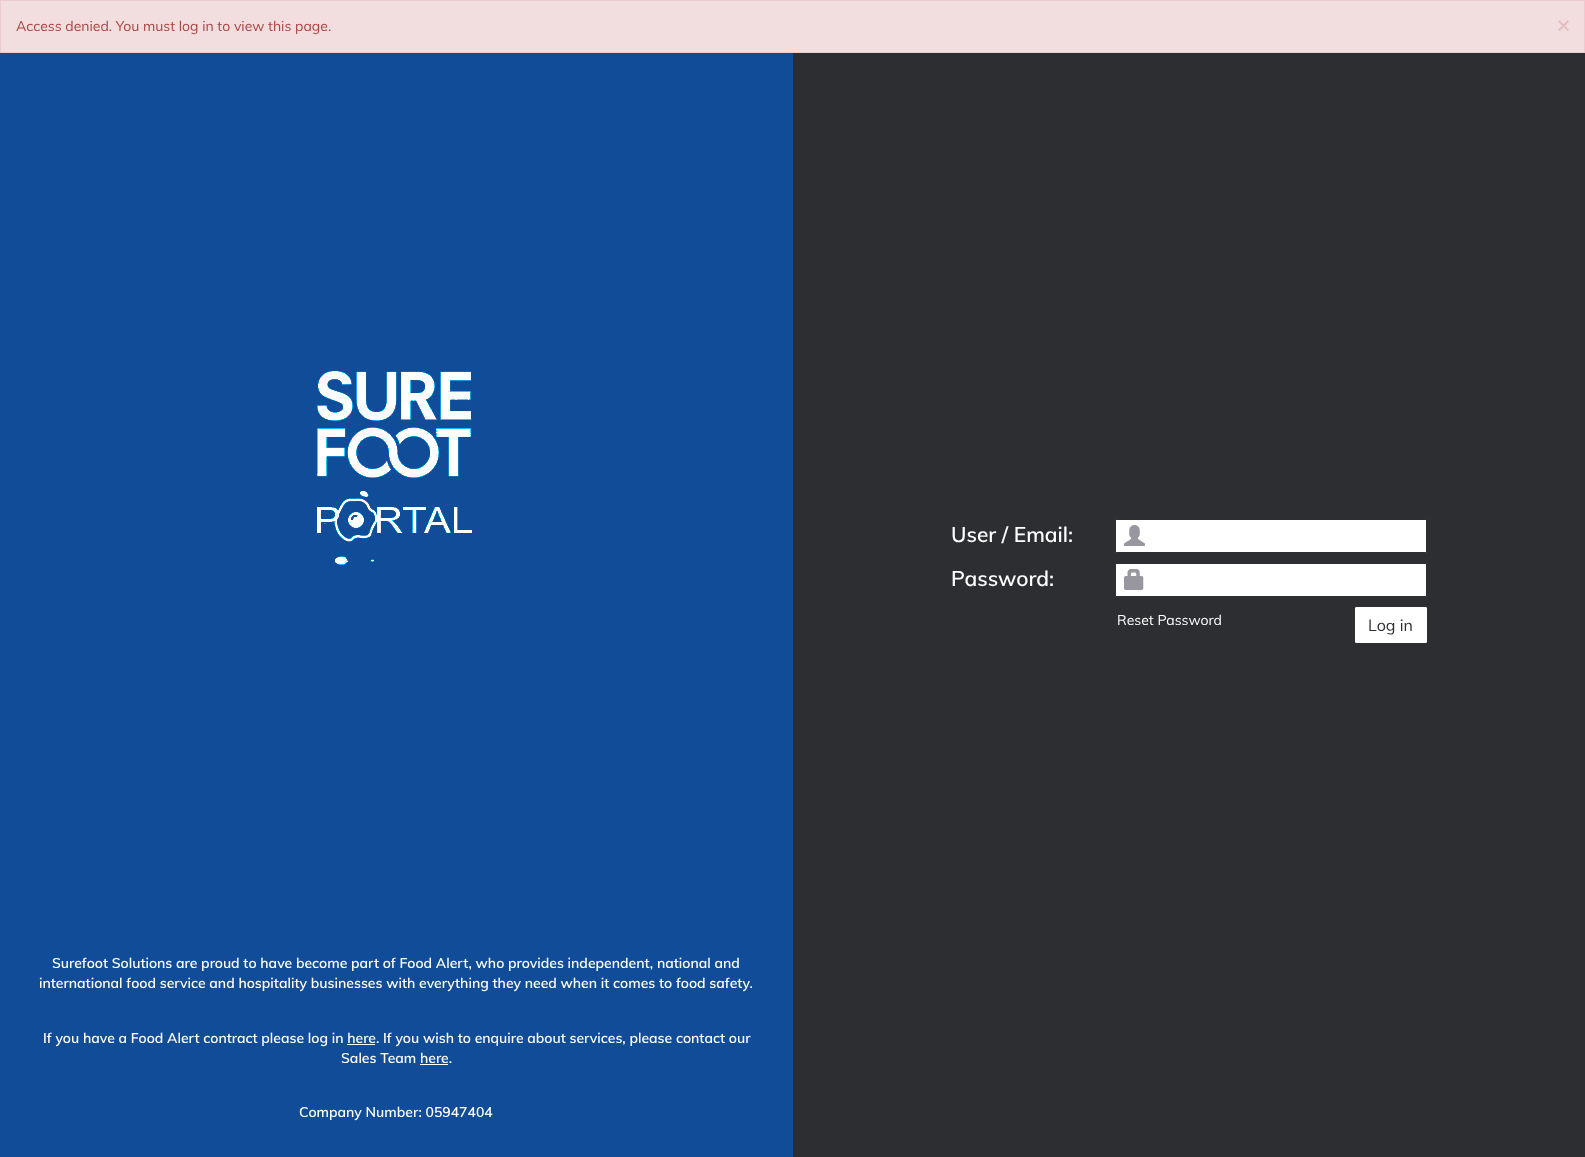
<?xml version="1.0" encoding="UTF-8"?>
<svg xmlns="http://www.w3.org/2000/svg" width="1585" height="1157">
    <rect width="100%" height="100%" fill="#104C97"/>
    <rect x="0.5" y="0.5" width="1584" height="52" fill="#F2DEDE" stroke="#EBCCD1"/>
    <text x="16" y="31" font-family="Muli" font-size="14" fill="#A94442">Access denied. You must log in to view this page.</text>
    <text x="1557" y="32" font-family="Muli" font-size="21" font-weight="700" fill="#E3BFBF">×</text>
    <rect x="793" y="53" width="792" height="1104" fill="#2C2E31"/>
    <rect x="1115.5" y="519.5" width="311" height="33" rx="0.5" fill="#FFFFFF" stroke="#2C2E31"/>
    <text x="951" y="542" font-family="Muli" font-size="21" font-weight="600" fill="#FFFFFF">User / Email:</text>
    <image x="1124" y="525" width="21" height="21" href="img_01.png"/>
    <rect x="1115.5" y="563.5" width="311" height="33" rx="0.5" fill="#FFFFFF" stroke="#2C2E31"/>
    <text x="951" y="586" font-family="Muli" font-size="21" font-weight="600" fill="#FFFFFF">Password:</text>
    <image x="1124" y="569" width="20" height="21" href="img_02.png"/>
    <text x="1117" y="625" font-family="Muli" font-size="14" fill="#FFFFFF">Reset Password</text>
    <rect x="1355.5" y="607.5" width="71" height="35" rx="0.5" fill="#FFFFFF" stroke="#FFFFFF"/>
    <text x="1368" y="631" font-family="Muli" font-size="16" fill="#2C2E31">Log in</text>
    <image x="317" y="371" width="155" height="194" href="img_03.png"/>
    <text x="52" y="968" font-family="Muli" font-size="14" font-weight="600" fill="#FFFFFF">Surefoot Solutions are proud to have become part of Food Alert, who provides independent, national and</text>
    <text x="39" y="988" font-family="Muli" font-size="14" font-weight="600" fill="#FFFFFF">international food service and hospitality businesses with everything they need when it comes to food safety.</text>
    <text x="43" y="1043" font-family="Muli" font-size="14" font-weight="600" fill="#FFFFFF">If you have a Food Alert contract please log in here. If you wish to enquire about services, please contact our</text>
    <rect x="347" y="1044" width="28" height="1" fill="#FFFFFF"/>
    <text x="341" y="1063" font-family="Muli" font-size="14" font-weight="600" fill="#FFFFFF">Sales Team here.</text>
    <rect x="420" y="1064" width="28" height="1" fill="#FFFFFF"/>
    <text x="299" y="1117" font-family="Muli" font-size="14" font-weight="600" fill="#FFFFFF">Company Number: 05947404</text>
</svg>
